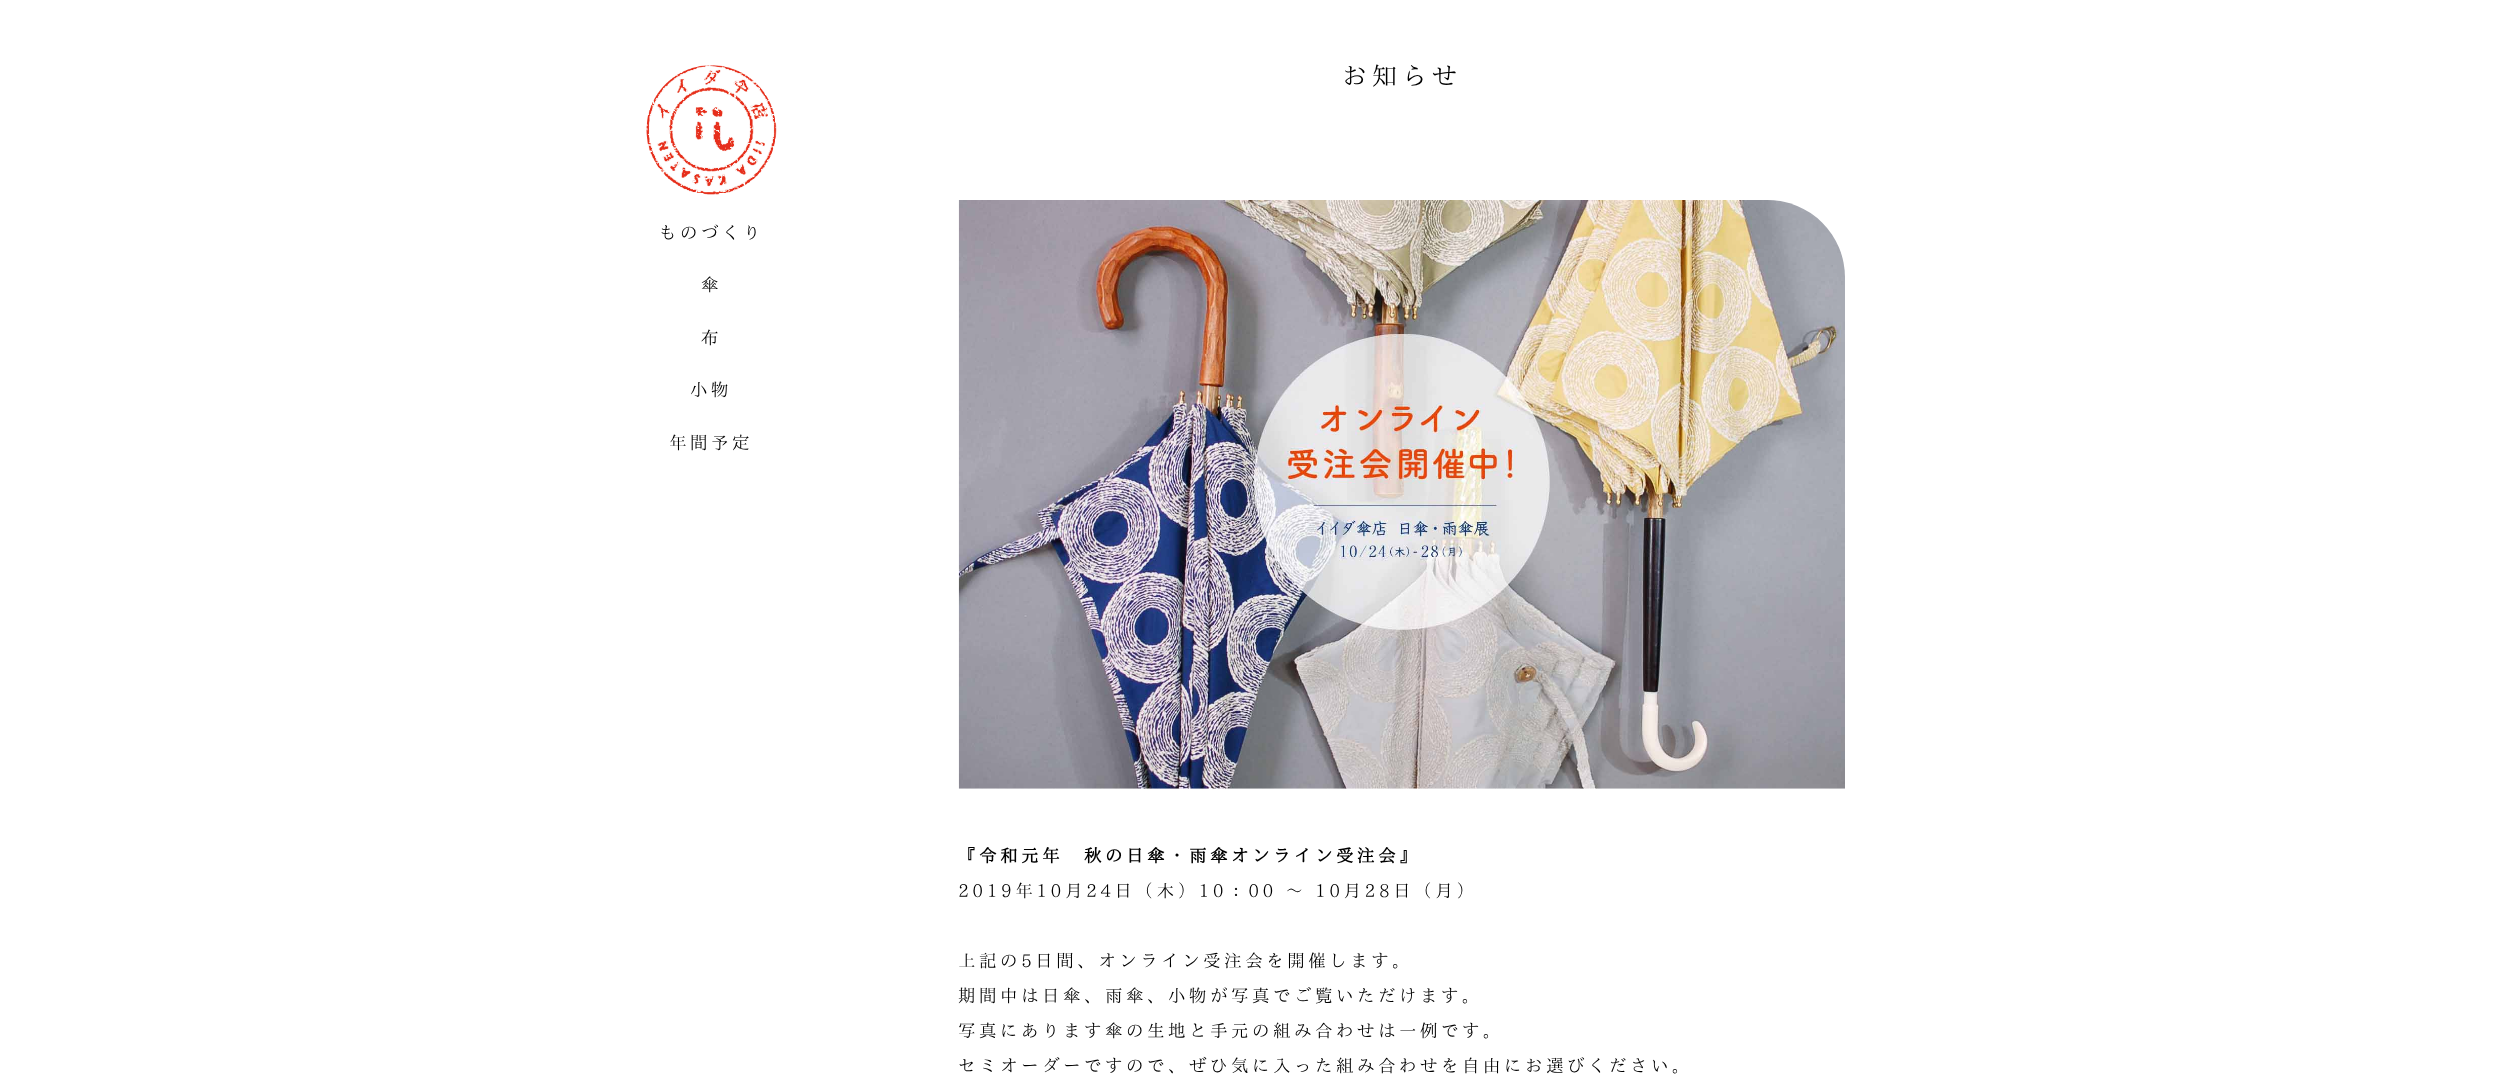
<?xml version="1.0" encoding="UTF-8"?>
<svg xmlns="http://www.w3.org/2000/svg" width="2516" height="1074">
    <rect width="100%" height="100%" fill="#FFFFFF"/>
    <image x="646" y="65" width="131" height="130" href="img_01.png"/>
    <text x="659" y="239" font-family="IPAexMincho" font-size="17.5" letter-spacing="3.5" fill="#000000">ものづくり</text>
    <text x="701" y="291" font-family="IPAexMincho" font-size="17.5" letter-spacing="3.5" fill="#000000">傘</text>
    <text x="701" y="344" font-family="IPAexMincho" font-size="17.5" letter-spacing="3.5" fill="#000000">布</text>
    <text x="690" y="396" font-family="IPAexMincho" font-size="17.5" letter-spacing="3.5" fill="#000000">小物</text>
    <text x="669" y="449" font-family="IPAexMincho" font-size="17.5" letter-spacing="3.5" fill="#000000">年間予定</text>
    <text x="1342" y="85" font-family="IPAexMincho" font-size="25" letter-spacing="5" fill="#000000">お知らせ</text>
    <image x="958" y="200" width="887" height="589" href="img_02.png"/>
    <text x="958" y="862" font-family="IPAexMincho" font-size="17.5" font-weight="700" letter-spacing="3.5" fill="#000000">『令和元年　秋の日傘・雨傘オンライン受注会』</text>
    <text x="958" y="897" font-family="IPAexMincho" font-size="17.5" letter-spacing="3.5" fill="#000000">2019年10月24日（木）10：00 ～ 10月28日（月）</text>
    <text x="958" y="967" font-family="IPAexMincho" font-size="17.5" letter-spacing="3.5" fill="#000000">上記の5日間、オンライン受注会を開催します。</text>
    <text x="958" y="1002" font-family="IPAexMincho" font-size="17.5" letter-spacing="3.5" fill="#000000">期間中は日傘、雨傘、小物が写真でご覧いただけます。</text>
    <text x="958" y="1037" font-family="IPAexMincho" font-size="17.5" letter-spacing="3.5" fill="#000000">写真にあります傘の生地と手元の組み合わせは一例です。</text>
    <text x="958" y="1072" font-family="IPAexMincho" font-size="17.5" letter-spacing="3.5" fill="#000000">セミオーダーですので、ぜひ気に入った組み合わせを自由にお選びください。</text>
</svg>
